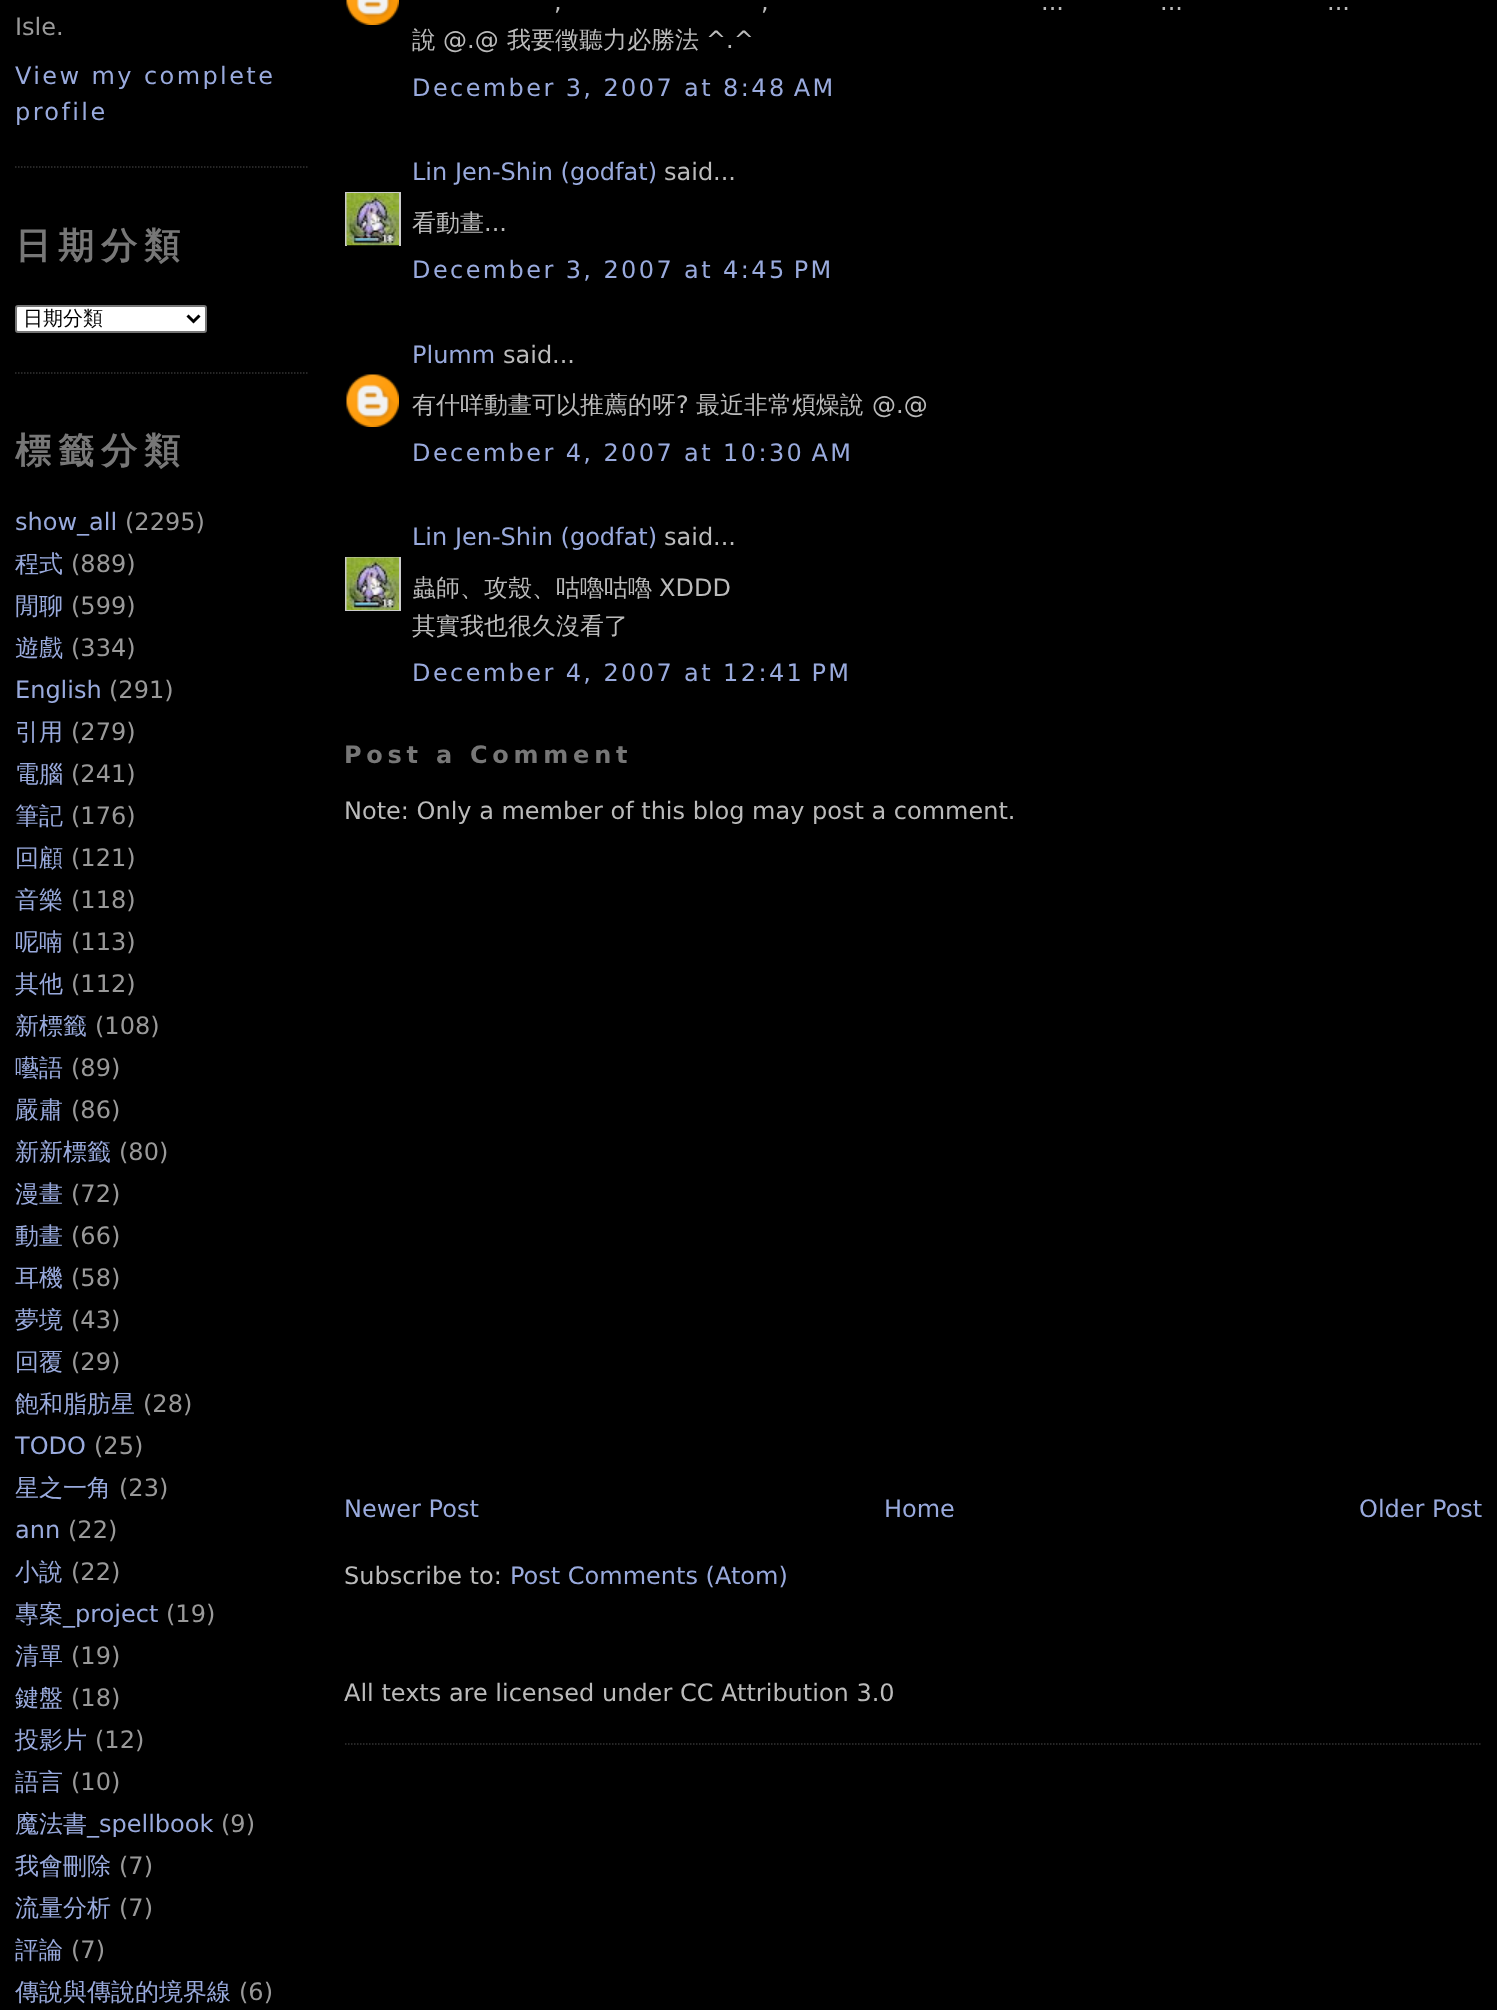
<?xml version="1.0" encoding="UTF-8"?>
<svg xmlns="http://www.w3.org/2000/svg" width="1497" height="2010">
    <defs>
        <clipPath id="clip1"><rect x="345" y="192" width="56" height="54"/></clipPath>
        <clipPath id="clip2"><rect x="345" y="557" width="56" height="54"/></clipPath>
    </defs>
    <rect width="100%" height="100%" fill="#000000"/>
    <path d="M 15 167 H 309" fill="none" stroke="#333333" stroke-width="1.5" stroke-dasharray="1.5 1.5"/>
    <text x="15" y="35" font-family="DejaVu Sans" font-size="24" fill="#999999">Isle.</text>
    <text font-family="DejaVu Sans" font-size="24" letter-spacing="2.4" fill="#99AADD">
        <tspan x="15" y="84">View my complete</tspan>
        <tspan x="15" y="120">profile</tspan>
    </text>
    <path d="M 15 373 H 309" fill="none" stroke="#333333" stroke-width="1.5" stroke-dasharray="1.5 1.5"/>
    <text x="15" y="258" font-family="WenQuanYi Zen Hei" font-size="36" font-weight="700" letter-spacing="7" fill="#777777">日期分類</text>
    <rect x="16" y="306" width="190" height="26" rx="2" fill="#FFFFFF" stroke="#767676" stroke-width="2"/>
    <path d="M 187.5 315.5 L 193.5 321.5 L 199.5 315.5" fill="none" stroke="#000000" stroke-width="3"/>
    <text x="23" y="325" font-family="WenQuanYi Zen Hei" font-size="20" font-weight="500" fill="#000000">日期分類</text>
    <text x="15" y="463" font-family="WenQuanYi Zen Hei" font-size="36" font-weight="700" letter-spacing="7" fill="#777777">標籤分類</text>
    <text x="15" y="530" font-family="DejaVu Sans" font-size="24" fill="#99AADD">show_all</text>
    <text x="125" y="530" font-family="DejaVu Sans" font-size="24" fill="#999999">(2295)</text>
    <text x="15" y="572" font-family="WenQuanYi Zen Hei" font-size="24" font-weight="500" fill="#99AADD">程式</text>
    <text x="71" y="572" font-family="DejaVu Sans" font-size="24" fill="#999999">(889)</text>
    <text x="15" y="614" font-family="WenQuanYi Zen Hei" font-size="24" font-weight="500" fill="#99AADD">閒聊</text>
    <text x="71" y="614" font-family="DejaVu Sans" font-size="24" fill="#999999">(599)</text>
    <text x="15" y="656" font-family="WenQuanYi Zen Hei" font-size="24" font-weight="500" fill="#99AADD">遊戲</text>
    <text x="71" y="656" font-family="DejaVu Sans" font-size="24" fill="#999999">(334)</text>
    <text x="15" y="698" font-family="DejaVu Sans" font-size="24" fill="#99AADD">English</text>
    <text x="109" y="698" font-family="DejaVu Sans" font-size="24" fill="#999999">(291)</text>
    <text x="15" y="740" font-family="WenQuanYi Zen Hei" font-size="24" font-weight="500" fill="#99AADD">引用</text>
    <text x="71" y="740" font-family="DejaVu Sans" font-size="24" fill="#999999">(279)</text>
    <text x="15" y="782" font-family="WenQuanYi Zen Hei" font-size="24" font-weight="500" fill="#99AADD">電腦</text>
    <text x="71" y="782" font-family="DejaVu Sans" font-size="24" fill="#999999">(241)</text>
    <text x="15" y="824" font-family="WenQuanYi Zen Hei" font-size="24" font-weight="500" fill="#99AADD">筆記</text>
    <text x="71" y="824" font-family="DejaVu Sans" font-size="24" fill="#999999">(176)</text>
    <text x="15" y="866" font-family="WenQuanYi Zen Hei" font-size="24" font-weight="500" fill="#99AADD">回顧</text>
    <text x="71" y="866" font-family="DejaVu Sans" font-size="24" fill="#999999">(121)</text>
    <text x="15" y="908" font-family="WenQuanYi Zen Hei" font-size="24" font-weight="500" fill="#99AADD">音樂</text>
    <text x="71" y="908" font-family="DejaVu Sans" font-size="24" fill="#999999">(118)</text>
    <text x="15" y="950" font-family="WenQuanYi Zen Hei" font-size="24" font-weight="500" fill="#99AADD">呢喃</text>
    <text x="71" y="950" font-family="DejaVu Sans" font-size="24" fill="#999999">(113)</text>
    <text x="15" y="992" font-family="WenQuanYi Zen Hei" font-size="24" font-weight="500" fill="#99AADD">其他</text>
    <text x="71" y="992" font-family="DejaVu Sans" font-size="24" fill="#999999">(112)</text>
    <text x="15" y="1034" font-family="WenQuanYi Zen Hei" font-size="24" font-weight="500" fill="#99AADD">新標籤</text>
    <text x="95" y="1034" font-family="DejaVu Sans" font-size="24" fill="#999999">(108)</text>
    <text x="15" y="1076" font-family="WenQuanYi Zen Hei" font-size="24" font-weight="500" fill="#99AADD">囈語</text>
    <text x="71" y="1076" font-family="DejaVu Sans" font-size="24" fill="#999999">(89)</text>
    <text x="15" y="1118" font-family="WenQuanYi Zen Hei" font-size="24" font-weight="500" fill="#99AADD">嚴肅</text>
    <text x="71" y="1118" font-family="DejaVu Sans" font-size="24" fill="#999999">(86)</text>
    <text x="15" y="1160" font-family="WenQuanYi Zen Hei" font-size="24" font-weight="500" fill="#99AADD">新新標籤</text>
    <text x="119" y="1160" font-family="DejaVu Sans" font-size="24" fill="#999999">(80)</text>
    <text x="15" y="1202" font-family="WenQuanYi Zen Hei" font-size="24" font-weight="500" fill="#99AADD">漫畫</text>
    <text x="71" y="1202" font-family="DejaVu Sans" font-size="24" fill="#999999">(72)</text>
    <text x="15" y="1244" font-family="WenQuanYi Zen Hei" font-size="24" font-weight="500" fill="#99AADD">動畫</text>
    <text x="71" y="1244" font-family="DejaVu Sans" font-size="24" fill="#999999">(66)</text>
    <text x="15" y="1286" font-family="WenQuanYi Zen Hei" font-size="24" font-weight="500" fill="#99AADD">耳機</text>
    <text x="71" y="1286" font-family="DejaVu Sans" font-size="24" fill="#999999">(58)</text>
    <text x="15" y="1328" font-family="WenQuanYi Zen Hei" font-size="24" font-weight="500" fill="#99AADD">夢境</text>
    <text x="71" y="1328" font-family="DejaVu Sans" font-size="24" fill="#999999">(43)</text>
    <text x="15" y="1370" font-family="WenQuanYi Zen Hei" font-size="24" font-weight="500" fill="#99AADD">回覆</text>
    <text x="71" y="1370" font-family="DejaVu Sans" font-size="24" fill="#999999">(29)</text>
    <text x="15" y="1412" font-family="WenQuanYi Zen Hei" font-size="24" font-weight="500" fill="#99AADD">飽和脂肪星</text>
    <text x="143" y="1412" font-family="DejaVu Sans" font-size="24" fill="#999999">(28)</text>
    <text x="15" y="1454" font-family="DejaVu Sans" font-size="24" fill="#99AADD">TODO</text>
    <text x="94" y="1454" font-family="DejaVu Sans" font-size="24" fill="#999999">(25)</text>
    <text x="15" y="1496" font-family="WenQuanYi Zen Hei" font-size="24" font-weight="500" fill="#99AADD">星之一角</text>
    <text x="119" y="1496" font-family="DejaVu Sans" font-size="24" fill="#999999">(23)</text>
    <text x="15" y="1538" font-family="DejaVu Sans" font-size="24" fill="#99AADD">ann</text>
    <text x="68" y="1538" font-family="DejaVu Sans" font-size="24" fill="#999999">(22)</text>
    <text x="15" y="1580" font-family="WenQuanYi Zen Hei" font-size="24" font-weight="500" fill="#99AADD">小說</text>
    <text x="71" y="1580" font-family="DejaVu Sans" font-size="24" fill="#999999">(22)</text>
    <text x="15" y="1622" font-family="WenQuanYi Zen Hei" font-size="24" font-weight="500" fill="#99AADD">專案</text>
    <text x="63" y="1622" font-family="DejaVu Sans" font-size="24" fill="#99AADD">_project</text>
    <text x="166" y="1622" font-family="DejaVu Sans" font-size="24" fill="#999999">(19)</text>
    <text x="15" y="1664" font-family="WenQuanYi Zen Hei" font-size="24" font-weight="500" fill="#99AADD">清單</text>
    <text x="71" y="1664" font-family="DejaVu Sans" font-size="24" fill="#999999">(19)</text>
    <text x="15" y="1706" font-family="WenQuanYi Zen Hei" font-size="24" font-weight="500" fill="#99AADD">鍵盤</text>
    <text x="71" y="1706" font-family="DejaVu Sans" font-size="24" fill="#999999">(18)</text>
    <text x="15" y="1748" font-family="WenQuanYi Zen Hei" font-size="24" font-weight="500" fill="#99AADD">投影片</text>
    <text x="95" y="1748" font-family="DejaVu Sans" font-size="24" fill="#999999">(12)</text>
    <text x="15" y="1790" font-family="WenQuanYi Zen Hei" font-size="24" font-weight="500" fill="#99AADD">語言</text>
    <text x="71" y="1790" font-family="DejaVu Sans" font-size="24" fill="#999999">(10)</text>
    <text x="15" y="1832" font-family="WenQuanYi Zen Hei" font-size="24" font-weight="500" fill="#99AADD">魔法書</text>
    <text x="87" y="1832" font-family="DejaVu Sans" font-size="24" fill="#99AADD">_spellbook</text>
    <text x="221" y="1832" font-family="DejaVu Sans" font-size="24" fill="#999999">(9)</text>
    <text x="15" y="1874" font-family="WenQuanYi Zen Hei" font-size="24" font-weight="500" fill="#99AADD">我會刪除</text>
    <text x="119" y="1874" font-family="DejaVu Sans" font-size="24" fill="#999999">(7)</text>
    <text x="15" y="1916" font-family="WenQuanYi Zen Hei" font-size="24" font-weight="500" fill="#99AADD">流量分析</text>
    <text x="119" y="1916" font-family="DejaVu Sans" font-size="24" fill="#999999">(7)</text>
    <text x="15" y="1958" font-family="WenQuanYi Zen Hei" font-size="24" font-weight="500" fill="#99AADD">評論</text>
    <text x="71" y="1958" font-family="DejaVu Sans" font-size="24" fill="#999999">(7)</text>
    <text x="15" y="2000" font-family="WenQuanYi Zen Hei" font-size="24" font-weight="500" fill="#99AADD">傳說與傳說的境界線</text>
    <text x="239" y="2000" font-family="DejaVu Sans" font-size="24" fill="#999999">(6)</text>
    <image x="346" y="0" width="53" height="25" href="img_01.png"/>
    <text x="554" y="10" font-family="DejaVu Sans" font-size="24" fill="#BBBBBB">,</text>
    <text x="761" y="10" font-family="DejaVu Sans" font-size="24" fill="#BBBBBB">,</text>
    <text x="1041" y="10" font-family="DejaVu Sans" font-size="24" fill="#BBBBBB">...</text>
    <text x="1160" y="10" font-family="DejaVu Sans" font-size="24" fill="#BBBBBB">...</text>
    <text x="1327" y="10" font-family="DejaVu Sans" font-size="24" fill="#BBBBBB">...</text>
    <text x="412" y="48" font-family="WenQuanYi Zen Hei" font-size="24" font-weight="500" fill="#BBBBBB">說</text>
    <text x="443" y="48" font-family="DejaVu Sans" font-size="24" fill="#BBBBBB">@.@</text>
    <text x="507" y="48" font-family="WenQuanYi Zen Hei" font-size="24" font-weight="500" fill="#BBBBBB">我要徵聽力必勝法</text>
    <text x="706" y="48" font-family="DejaVu Sans" font-size="24" fill="#BBBBBB">^.^</text>
    <text x="412" y="96" font-family="DejaVu Sans" font-size="24" letter-spacing="2.4" fill="#99AADD">December 3, 2007 at 8:48 AM</text>
    <text x="412" y="180" font-family="DejaVu Sans" font-size="24" fill="#99AADD">Lin Jen-Shin (godfat)</text>
    <text x="664" y="180" font-family="DejaVu Sans" font-size="24" fill="#BBBBBB">said...</text>
    <g clip-path="url(#clip1)">
        <rect x="346" y="193" width="54" height="54" fill="none" stroke="#CCCCCC" stroke-width="2"/>
    </g>
    <image x="346" y="193" width="53" height="53" href="img_02.png"/>
    <text x="412" y="231" font-family="WenQuanYi Zen Hei" font-size="24" font-weight="500" fill="#BBBBBB">看動畫</text>
    <text x="484" y="231" font-family="DejaVu Sans" font-size="24" fill="#BBBBBB">...</text>
    <text x="412" y="278" font-family="DejaVu Sans" font-size="24" letter-spacing="2.4" fill="#99AADD">December 3, 2007 at 4:45 PM</text>
    <text x="412" y="363" font-family="DejaVu Sans" font-size="24" fill="#99AADD">Plumm</text>
    <text x="503" y="363" font-family="DejaVu Sans" font-size="24" fill="#BBBBBB">said...</text>
    <image x="346" y="374" width="53" height="53" href="img_03.png"/>
    <text x="412" y="413" font-family="WenQuanYi Zen Hei" font-size="24" font-weight="500" fill="#BBBBBB">有什咩動畫可以推薦的呀</text>
    <text x="676" y="413" font-family="DejaVu Sans" font-size="24" fill="#BBBBBB">?</text>
    <text x="696" y="413" font-family="WenQuanYi Zen Hei" font-size="24" font-weight="500" fill="#BBBBBB">最近非常煩燥說</text>
    <text x="872" y="413" font-family="DejaVu Sans" font-size="24" fill="#BBBBBB">@.@</text>
    <text x="412" y="461" font-family="DejaVu Sans" font-size="24" letter-spacing="2.4" fill="#99AADD">December 4, 2007 at 10:30 AM</text>
    <text x="412" y="545" font-family="DejaVu Sans" font-size="24" fill="#99AADD">Lin Jen-Shin (godfat)</text>
    <text x="664" y="545" font-family="DejaVu Sans" font-size="24" fill="#BBBBBB">said...</text>
    <g clip-path="url(#clip2)">
        <rect x="346" y="558" width="54" height="53" fill="none" stroke="#CCCCCC" stroke-width="2"/>
    </g>
    <image x="346" y="557" width="53" height="53" href="img_04.png"/>
    <text x="412" y="596" font-family="WenQuanYi Zen Hei" font-size="24" font-weight="500" fill="#BBBBBB">蟲師、攻殼、咕嚕咕嚕</text>
    <text x="659" y="596" font-family="DejaVu Sans" font-size="24" fill="#BBBBBB">XDDD</text>
    <text x="412" y="634" font-family="WenQuanYi Zen Hei" font-size="24" font-weight="500" fill="#BBBBBB">其實我也很久沒看了</text>
    <text x="412" y="681" font-family="DejaVu Sans" font-size="24" letter-spacing="2.4" fill="#99AADD">December 4, 2007 at 12:41 PM</text>
    <text x="344" y="763" font-family="DejaVu Sans" font-size="24" font-weight="700" letter-spacing="4.75" fill="#777777">Post a Comment</text>
    <text x="344" y="819" font-family="DejaVu Sans" font-size="24" fill="#BBBBBB">Note: Only a member of this blog may post a comment.</text>
    <text x="344" y="1517" font-family="DejaVu Sans" font-size="24" fill="#99AADD">Newer Post</text>
    <text x="884" y="1517" font-family="DejaVu Sans" font-size="24" fill="#99AADD">Home</text>
    <text x="1359" y="1517" font-family="DejaVu Sans" font-size="24" fill="#99AADD">Older Post</text>
    <text x="344" y="1584" font-family="DejaVu Sans" font-size="24" fill="#BBBBBB">Subscribe to:</text>
    <text x="510" y="1584" font-family="DejaVu Sans" font-size="24" fill="#99AADD">Post Comments (Atom)</text>
    <path d="M 345 1744 H 1482" fill="none" stroke="#333333" stroke-width="1.5" stroke-dasharray="1.5 1.5"/>
    <text x="344" y="1701" font-family="DejaVu Sans" font-size="24" fill="#BBBBBB">All texts are licensed under CC Attribution 3.0</text>
</svg>
